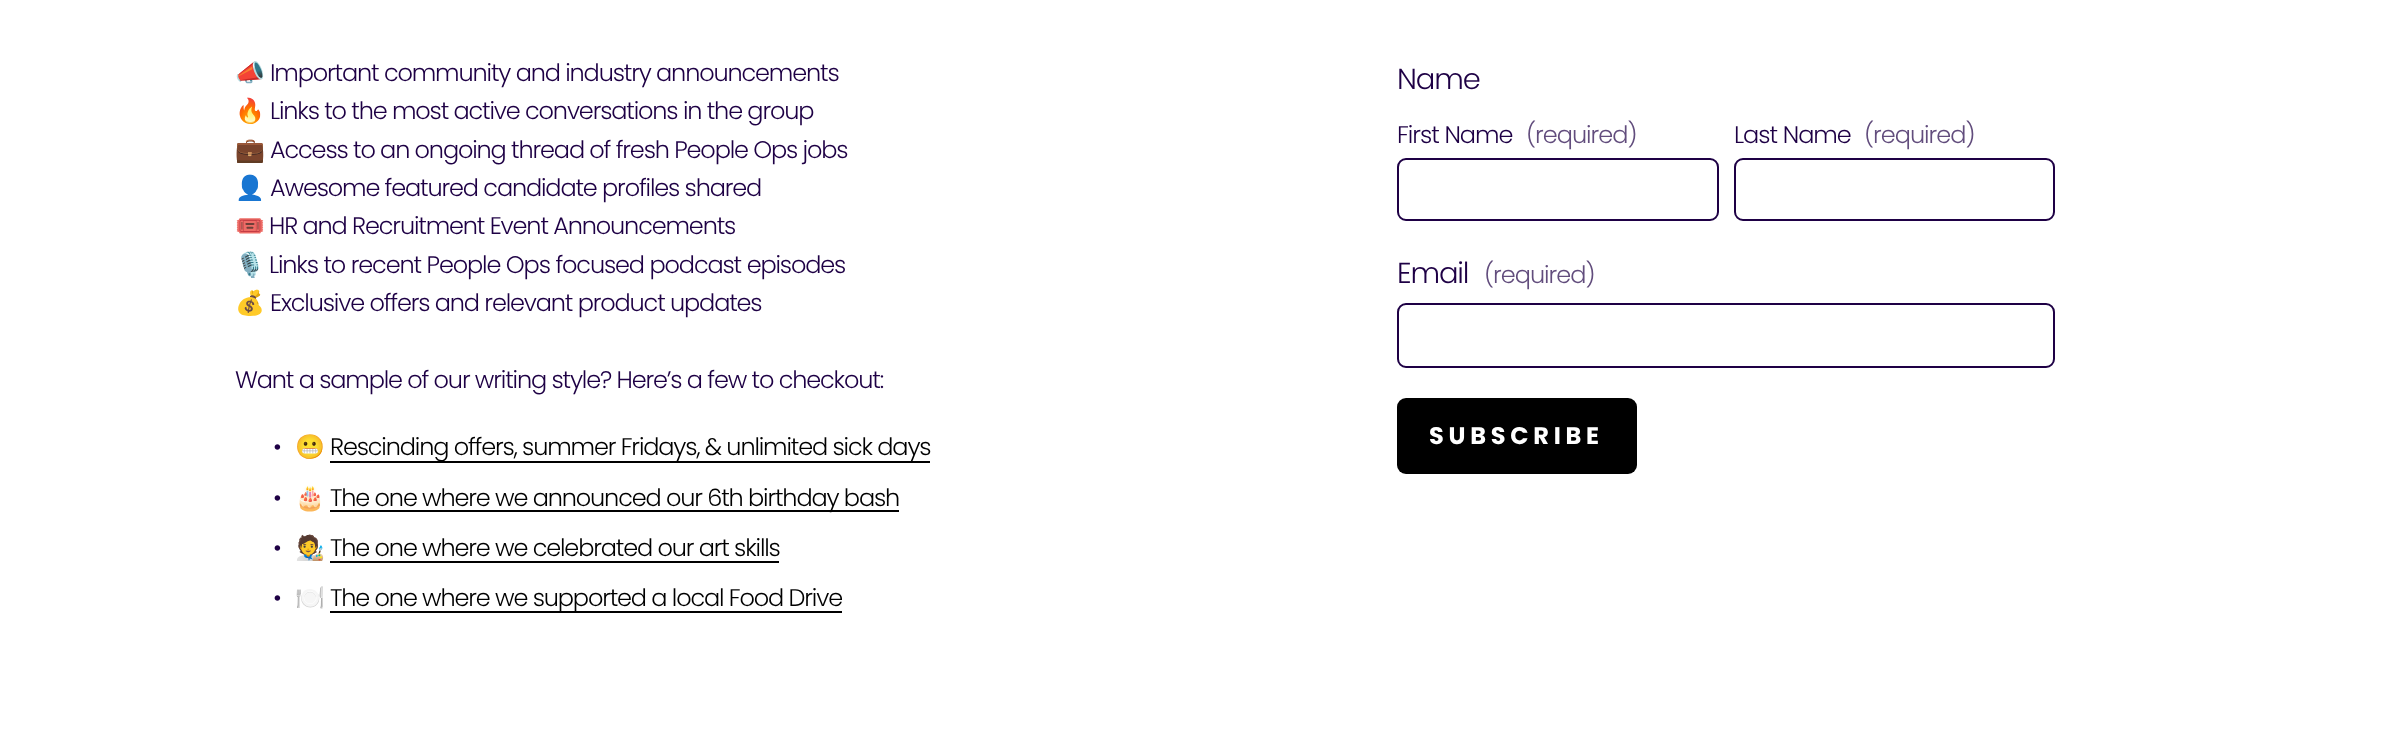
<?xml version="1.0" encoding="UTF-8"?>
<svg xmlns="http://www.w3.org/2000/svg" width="2394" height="751">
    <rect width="100%" height="100%" fill="#FFFFFF"/>
    <text x="235" y="81" font-family="Noto Color Emoji" font-size="24" letter-spacing="-1.15" fill="#1E0045">📣</text>
    <text x="270" y="81" font-family="Poppins" font-size="24" font-weight="300" letter-spacing="-1.15" fill="#1E0045">Important community and industry announcements</text>
    <text x="235" y="119" font-family="Noto Color Emoji" font-size="24" letter-spacing="-1.15" fill="#1E0045">🔥</text>
    <text x="270" y="119" font-family="Poppins" font-size="24" font-weight="300" letter-spacing="-1.15" fill="#1E0045">Links to the most active conversations in the group</text>
    <text x="235" y="158" font-family="Noto Color Emoji" font-size="24" letter-spacing="-1.15" fill="#1E0045">💼</text>
    <text x="270" y="158" font-family="Poppins" font-size="24" font-weight="300" letter-spacing="-1.15" fill="#1E0045">Access to an ongoing thread of fresh People Ops jobs</text>
    <text x="235" y="196" font-family="Noto Color Emoji" font-size="24" letter-spacing="-1.15" fill="#1E0045">👤</text>
    <text x="270" y="196" font-family="Poppins" font-size="24" font-weight="300" letter-spacing="-1.15" fill="#1E0045">Awesome featured candidate profiles shared</text>
    <text x="235" y="234" font-family="Noto Color Emoji" font-size="24" letter-spacing="-1.15" fill="#1E0045">🎟️</text>
    <text x="269" y="234" font-family="Poppins" font-size="24" font-weight="300" letter-spacing="-1.15" fill="#1E0045">HR and Recruitment Event Announcements</text>
    <text x="235" y="273" font-family="Noto Color Emoji" font-size="24" letter-spacing="-1.15" fill="#1E0045">🎙️</text>
    <text x="269" y="273" word-spacing="0.25" font-family="Poppins" font-size="24" font-weight="300" letter-spacing="-1.15" fill="#1E0045">Links to recent People Ops focused podcast episodes</text>
    <text x="235" y="311" font-family="Noto Color Emoji" font-size="24" letter-spacing="-1.15" fill="#1E0045">💰</text>
    <text x="270" y="311" font-family="Poppins" font-size="24" font-weight="300" letter-spacing="-1.15" fill="#1E0045">Exclusive offers and relevant product updates</text>
    <text x="235" y="388" font-family="Poppins" font-size="24" font-weight="300" letter-spacing="-1.15" fill="#1E0045">Want a sample of our writing style? Here’s a few to checkout:</text>
    <text x="273" y="455" font-family="Poppins" font-size="24" font-weight="300" letter-spacing="-1.15" fill="#1E0045">•</text>
    <text x="295" y="455" font-family="Noto Color Emoji" font-size="24" letter-spacing="-1.15" fill="#1E0045">😬</text>
    <rect x="330" y="461" width="600" height="2" fill="#000000"/>
    <text x="330" y="455" font-family="Poppins" font-size="24" font-weight="300" letter-spacing="-1.15" fill="#000000">Rescinding offers, summer Fridays, &amp; unlimited sick days</text>
    <text x="273" y="506" font-family="Poppins" font-size="24" font-weight="300" letter-spacing="-1.15" fill="#1E0045">•</text>
    <text x="295" y="506" font-family="Noto Color Emoji" font-size="24" letter-spacing="-1.15" fill="#1E0045">🎂</text>
    <rect x="330" y="510" width="569" height="2" fill="#000000"/>
    <text x="330" y="506" font-family="Poppins" font-size="24" font-weight="300" letter-spacing="-1.15" fill="#000000">The one where we announced our 6th birthday bash</text>
    <text x="273" y="556" font-family="Poppins" font-size="24" font-weight="300" letter-spacing="-1.15" fill="#1E0045">•</text>
    <text x="295" y="556" font-family="Noto Color Emoji" font-size="24" letter-spacing="-1.15" fill="#1E0045">🧑‍🎨</text>
    <text x="330" y="556" font-family="Poppins" font-size="24" font-weight="300" letter-spacing="-1.15" fill="#000000">The one where we celebrated our art skills</text>
    <rect x="330" y="561" width="449" height="2" fill="#000000"/>
    <text x="273" y="606" font-family="Poppins" font-size="24" font-weight="300" letter-spacing="-1.15" fill="#1E0045">•</text>
    <text x="295" y="606" font-family="Noto Color Emoji" font-size="24" letter-spacing="-1.15" fill="#1E0045">🍽️</text>
    <rect x="330" y="611" width="512" height="2" fill="#000000"/>
    <text x="330" y="606" font-family="Poppins" font-size="24" font-weight="300" letter-spacing="-1.15" fill="#000000">The one where we supported a local Food Drive</text>
    <text x="1397" y="89" font-family="Poppins" font-size="29" font-weight="300" letter-spacing="-1.15" fill="#1E0045">Name</text>
    <text x="1397" y="143" font-family="Poppins" font-size="24" font-weight="300" letter-spacing="-1" fill="#1E0045">First Name</text>
    <text x="1526" y="143" font-family="Poppins" font-size="24" font-weight="300" letter-spacing="-1" fill="#624D7D">(required)</text>
    <rect x="1398" y="159" width="320" height="61" rx="8" fill="none" stroke="#1E0045" stroke-width="2"/>
    <text x="1734" y="143" font-family="Poppins" font-size="24" font-weight="300" letter-spacing="-1" fill="#1E0045">Last Name</text>
    <text x="1864" y="143" font-family="Poppins" font-size="24" font-weight="300" letter-spacing="-1" fill="#624D7D">(required)</text>
    <rect x="1735" y="159" width="319" height="61" rx="8" fill="none" stroke="#1E0045" stroke-width="2"/>
    <text x="1397" y="283" font-family="Poppins" font-size="29" font-weight="300" letter-spacing="-1.15" fill="#1E0045">Email</text>
    <text x="1484" y="283" font-family="Poppins" font-size="24" font-weight="300" letter-spacing="-1" fill="#624D7D">(required)</text>
    <rect x="1398" y="304" width="656" height="63" rx="8" fill="none" stroke="#1E0045" stroke-width="2"/>
    <rect x="1397" y="398" width="240" height="76" rx="9" fill="#000000"/>
    <text x="1429" y="444" font-family="Poppins" font-size="24" font-weight="700" letter-spacing="4.75" fill="#FFFFFF">SUBSCRIBE</text>
</svg>
